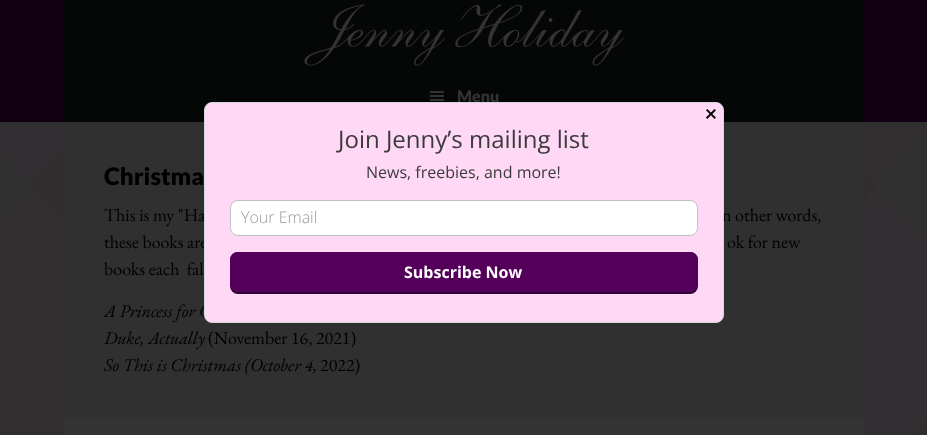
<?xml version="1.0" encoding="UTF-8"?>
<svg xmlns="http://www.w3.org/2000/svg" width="927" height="435">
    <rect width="100%" height="100%" fill="#FFFFFF"/>
    <image x="0" y="122" width="927" height="313" href="img_01.png"/>
    <rect x="0" y="0" width="927" height="122" fill="#110012"/>
    <rect x="64" y="0" width="800" height="122" fill="#050606"/>
    <image x="304" y="4" width="320" height="62" href="img_02.png"/>
    <image x="430" y="91" width="14" height="10" href="img_03.png"/>
    <text x="457" y="102" font-family="Lato" font-size="16" font-weight="900" fill="#333333">Menu</text>
    <rect x="64" y="418" width="800" height="17" fill="#333333"/>
    <rect x="64" y="122" width="800" height="296" fill="#303030"/>
    <text x="104" y="185" font-family="Lato" font-size="24" font-weight="900" fill="#000000">Christma</text>
    <text x="104" y="221" font-family="EB Garamond" font-size="18" fill="#000000">This is my "Ha</text>
    <text x="722" y="221" font-family="EB Garamond" font-size="18" fill="#000000">n other words,</text>
    <text x="104" y="248" font-family="EB Garamond" font-size="18" fill="#000000">these books are</text>
    <text x="727" y="248" font-family="EB Garamond" font-size="18" fill="#000000">ok for new</text>
    <text x="104" y="275" font-family="EB Garamond" font-size="18" fill="#000000" xml:space="preserve">books each  fal</text>
    <text font-family="EB Garamond" font-size="18" font-style="italic" fill="#000000">
        <tspan x="104" y="317">A Princess for C</tspan>
        <tspan x="104" y="344">Duke, Actually</tspan>
    </text>
    <text x="208" y="344" font-family="EB Garamond" font-size="18" fill="#000000">(November 16, 2021)</text>
    <text x="104" y="371" font-family="EB Garamond" font-size="18" font-style="italic" fill="#000000">So This is Christmas (October 4,</text>
    <text x="320" y="371" font-family="EB Garamond" font-size="18" fill="#000000">2022)</text>
    <rect x="204.5" y="102.5" width="519" height="220" rx="7.5" fill="#FFD8F5" stroke="#D4D8D8"/>
    <text x="704" y="120" font-family="DejaVu Sans" font-size="16" font-weight="700" fill="#000000">✕</text>
    <text x="338" y="148" font-family="Open Sans" font-size="24" fill="#3B3B3B">Join Jenny’s mailing list</text>
    <text x="366" y="178" font-family="Open Sans" font-size="16" fill="#3B3B3B">News, freebies, and more!</text>
    <rect x="230.5" y="200.5" width="467" height="35" rx="7.5" fill="#FFFFFF" stroke="#BEC2C2"/>
    <text x="241" y="223" font-family="Open Sans" font-size="16" font-weight="300" fill="#9B9797">Your Email</text>
    <rect x="230" y="252" width="468" height="42" rx="8" fill="#2F0035"/>
    <rect x="230" y="252" width="468" height="40" rx="8" fill="#54005B"/>
    <text x="404" y="278" font-family="Open Sans" font-size="16" font-weight="700" fill="#FFFFFF">Subscribe Now</text>
</svg>
